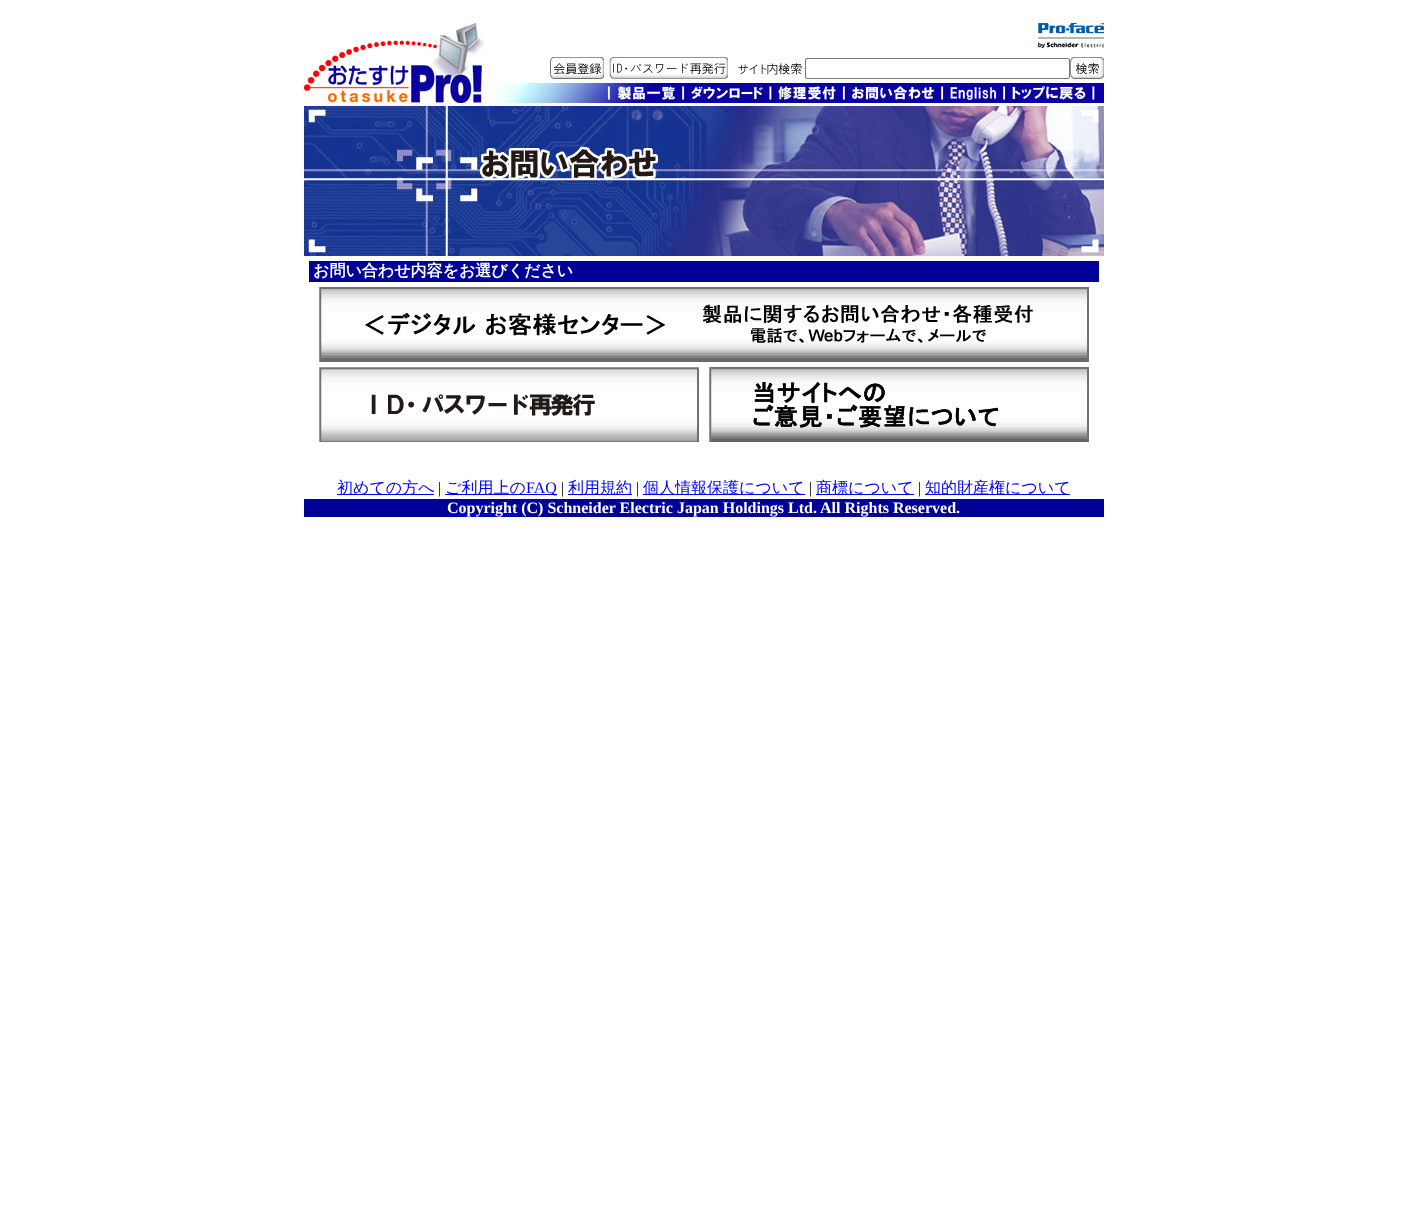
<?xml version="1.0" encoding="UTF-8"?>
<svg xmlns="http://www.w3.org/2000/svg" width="1407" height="1229">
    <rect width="100%" height="100%" fill="#FFFFFF"/>
    <image x="304" y="23" width="181" height="80" href="img_01.png"/>
    <image x="1038" y="23" width="66" height="25" href="img_02.png"/>
    <image x="550" y="57" width="54" height="22" href="img_03.png"/>
    <image x="609" y="57" width="119" height="22" href="img_04.png"/>
    <image x="738" y="63" width="64" height="12" href="img_05.png"/>
    <rect x="805.5" y="58.5" width="264" height="20" rx="1.5" fill="none" stroke="#767676"/>
    <image x="1070" y="57" width="34" height="22" href="img_06.png"/>
    <image x="497" y="83" width="112" height="20" href="img_07.png"/>
    <image x="609" y="83" width="74" height="20" href="img_08.png"/>
    <image x="683" y="83" width="87" height="20" href="img_09.png"/>
    <image x="770" y="83" width="74" height="20" href="img_10.png"/>
    <image x="844" y="83" width="98" height="20" href="img_11.png"/>
    <image x="942" y="83" width="62" height="20" href="img_12.png"/>
    <image x="1004" y="83" width="100" height="20" href="img_13.png"/>
    <image x="304" y="106" width="800" height="150" href="img_14.png"/>
    <rect x="309" y="261" width="790" height="21" fill="#000099"/>
    <text x="313" y="276" font-family="WenQuanYi Zen Hei" font-size="16" font-weight="700" fill="#FFFFFF">お問い合わせ内容をお選びください</text>
    <image x="319" y="287" width="770" height="75" href="img_15.png"/>
    <image x="319" y="367" width="380" height="75" href="img_16.png"/>
    <image x="709" y="367" width="380" height="75" href="img_17.png"/>
    <rect x="337" y="494" width="97" height="1" fill="#0000EE"/>
    <text x="337" y="493" font-family="WenQuanYi Zen Hei" font-size="16" font-weight="500" fill="#0000EE">初めての方へ</text>
    <text x="438" y="493" font-family="Liberation Serif" font-size="16" fill="#000000">|</text>
    <rect x="445" y="494" width="112" height="1" fill="#0000EE"/>
    <text x="445" y="493" font-family="WenQuanYi Zen Hei" font-size="16" font-weight="500" fill="#0000EE">ご利用上の</text>
    <text x="526" y="493" font-family="Liberation Serif" font-size="16" fill="#0000EE">FAQ</text>
    <text x="561" y="493" font-family="Liberation Serif" font-size="16" fill="#000000">|</text>
    <rect x="568" y="494" width="64" height="1" fill="#0000EE"/>
    <text x="568" y="493" font-family="WenQuanYi Zen Hei" font-size="16" font-weight="500" fill="#0000EE">利用規約</text>
    <text x="636" y="493" font-family="Liberation Serif" font-size="16" fill="#000000">|</text>
    <rect x="643" y="494" width="162" height="1" fill="#0000EE"/>
    <text x="643" y="493" font-family="WenQuanYi Zen Hei" font-size="16" font-weight="500" fill="#0000EE">個人情報保護について</text>
    <text x="809" y="493" font-family="Liberation Serif" font-size="16" fill="#000000">|</text>
    <rect x="816" y="494" width="98" height="1" fill="#0000EE"/>
    <text x="816" y="493" font-family="WenQuanYi Zen Hei" font-size="16" font-weight="500" fill="#0000EE">商標について</text>
    <text x="918" y="493" font-family="Liberation Serif" font-size="16" fill="#000000">|</text>
    <rect x="925" y="494" width="145" height="1" fill="#0000EE"/>
    <text x="925" y="493" font-family="WenQuanYi Zen Hei" font-size="16" font-weight="500" fill="#0000EE">知的財産権について</text>
    <rect x="304" y="499" width="800" height="18" fill="#000099"/>
    <rect x="447" y="514" width="70" height="1" fill="#0000EE"/>
    <text x="447" y="513" font-family="Liberation Serif" font-size="16" font-weight="700" fill="#FFFFFF">Copyright (C) Schneider Electric Japan Holdings Ltd. All Rights Reserved.</text>
</svg>
